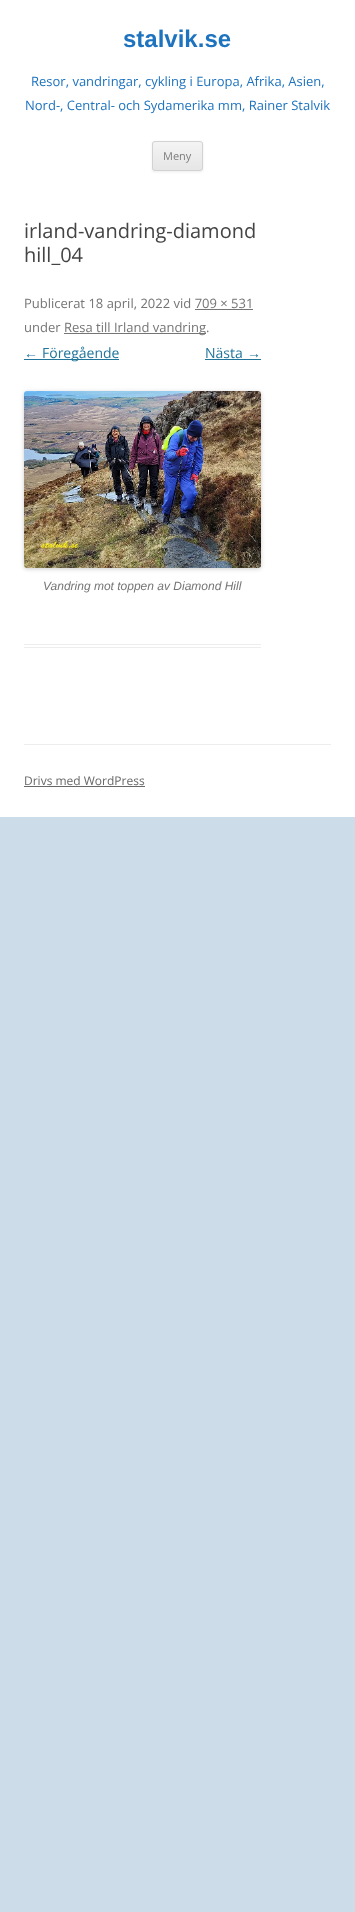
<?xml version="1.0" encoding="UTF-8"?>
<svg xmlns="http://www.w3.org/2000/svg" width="355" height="1912">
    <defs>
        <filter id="blur1" x="-50%" y="-200%" width="200%" height="500%"><feGaussianBlur stdDeviation="1"/></filter>
        <clipPath id="clip1"><rect x="152" y="141" width="51" height="30" rx="3"/></clipPath>
        <linearGradient id="g1" gradientUnits="userSpaceOnUse" x1="178" y1="142" x2="178" y2="170"><stop offset="0" stop-color="#F4F4F4"/><stop offset="1" stop-color="#E6E6E6"/></linearGradient>
        <filter id="blur2" x="-50%" y="-200%" width="200%" height="500%"><feGaussianBlur stdDeviation="2"/></filter>
    </defs>
    <rect width="100%" height="100%" fill="#CCDCE8"/>
    <rect x="0" y="0" width="355" height="817" fill="#FFFFFF"/>
    <text x="123" y="47" font-family="Liberation Sans" font-size="24" font-weight="700" fill="#1E73BE">stalvik.se</text>
    <text x="31" y="86" font-family="Open Sans" font-size="13" fill="#1E73BE">Resor, vandringar, cykling i Europa, Afrika, Asien,</text>
    <text x="25" y="110" font-family="Open Sans" font-size="13" fill="#1E73BE">Nord-, Central- och Sydamerika mm, Rainer Stalvik</text>
    <rect x="152" y="142" width="51" height="30" rx="3" fill="#404040" fill-opacity="0.1" filter="url(#blur1)"/>
    <g clip-path="url(#clip1)">
        <rect x="152" y="142" width="51" height="28" fill="url(#g1)"/>
    </g>
    <rect x="152.5" y="141.5" width="50" height="29" rx="2.5" fill="none" stroke="#D2D2D2"/>
    <text x="163" y="160" font-family="Open Sans" font-size="11" fill="#7C7C7C">Meny</text>
    <rect x="24" y="644" width="237" height="1" fill="#EDEDED"/>
    <rect x="24" y="647" width="237" height="1" fill="#EDEDED"/>
    <text font-family="Open Sans" font-size="20" fill="#444444">
        <tspan x="24" y="238">irland-vandring-diamond</tspan>
        <tspan x="24" y="262">hill_04</tspan>
    </text>
    <text x="24" y="308" font-family="Open Sans" font-size="13" fill="#757575">Publicerat 18 april, 2022 vid 709 × 531</text>
    <rect x="195" y="309" width="58" height="1" fill="#757575"/>
    <text x="24" y="332" font-family="Open Sans" font-size="13" fill="#757575">under</text>
    <rect x="64" y="333" width="142" height="1" fill="#757575"/>
    <text x="64" y="332" font-family="Open Sans" font-size="13" fill="#757575">Resa till Irland vandring.</text>
    <text x="24" y="358" font-family="Liberation Sans" font-size="14" fill="#21759B">←</text>
    <rect x="24" y="359" width="95" height="1" fill="#21759B"/>
    <text x="42" y="358" font-family="Open Sans" font-size="14" fill="#21759B">Föregående</text>
    <text x="205" y="358" font-family="Open Sans" font-size="14" fill="#21759B">Nästa</text>
    <text x="247" y="358" font-family="Liberation Sans" font-size="14" fill="#21759B">→</text>
    <rect x="205" y="359" width="56" height="1" fill="#21759B"/>
    <rect x="24" y="392" width="237" height="177" rx="3" fill="#000000" fill-opacity="0.2" filter="url(#blur2)"/>
    <image x="24" y="391" width="237" height="177" href="img_01.png"/>
    <text x="43" y="590" font-family="Liberation Sans" font-size="12" font-style="italic" fill="#757575">Vandring mot toppen av Diamond Hill</text>
    <rect x="24" y="744" width="307" height="1" fill="#EDEDED"/>
    <text x="24" y="785" font-family="Open Sans" font-size="12" fill="#686868">Drivs med WordPress</text>
    <rect x="24" y="786" width="121" height="1" fill="#686868"/>
</svg>
